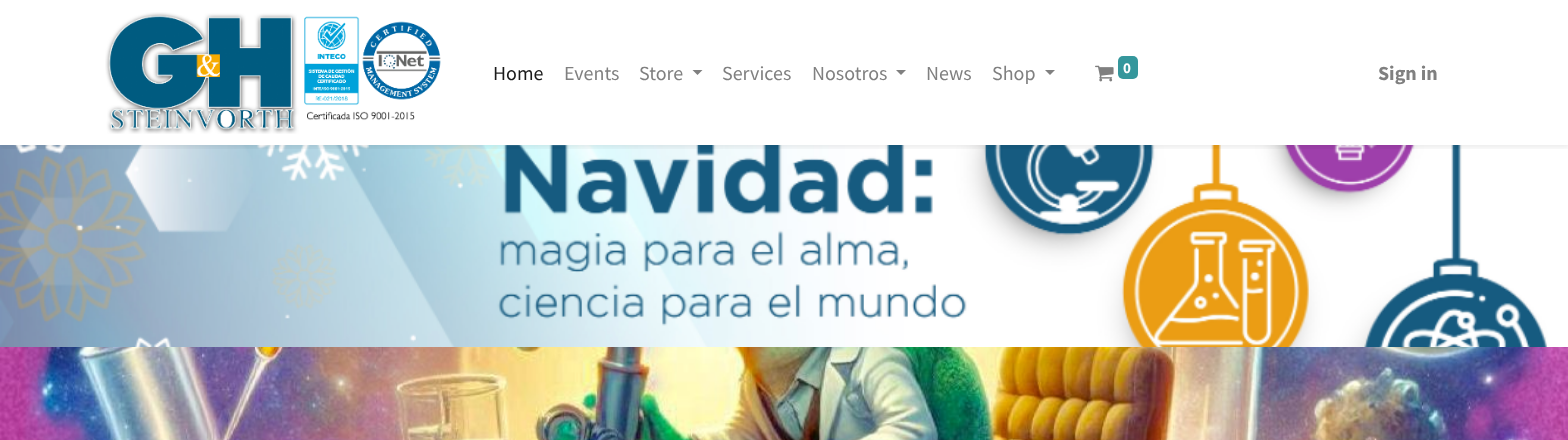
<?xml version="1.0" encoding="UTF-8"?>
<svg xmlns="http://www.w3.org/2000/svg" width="1568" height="440">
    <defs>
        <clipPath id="clip1"><rect x="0" y="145" width="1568" height="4"/></clipPath>
        <filter id="blur1" x="-50%" y="-200%" width="200%" height="500%"><feGaussianBlur stdDeviation="2.5"/></filter>
    </defs>
    <rect width="100%" height="100%" fill="#FFFFFF"/>
    <image x="0" y="145" width="1548" height="202" href="img_03.png"/>
    <g clip-path="url(#clip1)">
        <rect x="0" y="3" width="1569" height="145" fill="#000000" fill-opacity="0.07" filter="url(#blur1)"/>
    </g>
    <image x="105" y="12" width="336" height="122" href="img_01.png"/>
    <text x="493" y="80" font-family="Source Sans Pro" font-size="20" fill="#1A1A1A">Home</text>
    <text x="564" y="80" font-family="Source Sans Pro" font-size="20" fill="#808080">Events</text>
    <text x="639" y="80" font-family="Source Sans Pro" font-size="20" fill="#808080">Store</text>
    <path d="M 692.5 70 H 702.5 L 697.5 75 Z" fill="#808080"/>
    <text x="722" y="80" font-family="Source Sans Pro" font-size="20" fill="#808080">Services</text>
    <text x="812" y="80" font-family="Source Sans Pro" font-size="20" fill="#808080">Nosotros</text>
    <path d="M 896 70 H 906 L 901 75 Z" fill="#808080"/>
    <text x="926" y="80" font-family="Source Sans Pro" font-size="20" fill="#808080">News</text>
    <text x="992" y="80" font-family="Source Sans Pro" font-size="20" fill="#808080">Shop</text>
    <path d="M 1045 70 H 1055 L 1050 75 Z" fill="#808080"/>
    <image x="1095" y="65" width="19" height="17" href="img_02.png"/>
    <rect x="1118" y="56" width="20" height="23" rx="5" fill="#35979C"/>
    <text x="1123" y="73" font-family="Source Sans Pro" font-size="15" font-weight="700" fill="#FFFFFF">0</text>
    <text x="1378" y="80" font-family="Source Sans Pro" font-size="20" font-weight="700" fill="#808080">Sign in</text>
    <image x="0" y="347" width="1568" height="93" href="img_04.png"/>
</svg>
